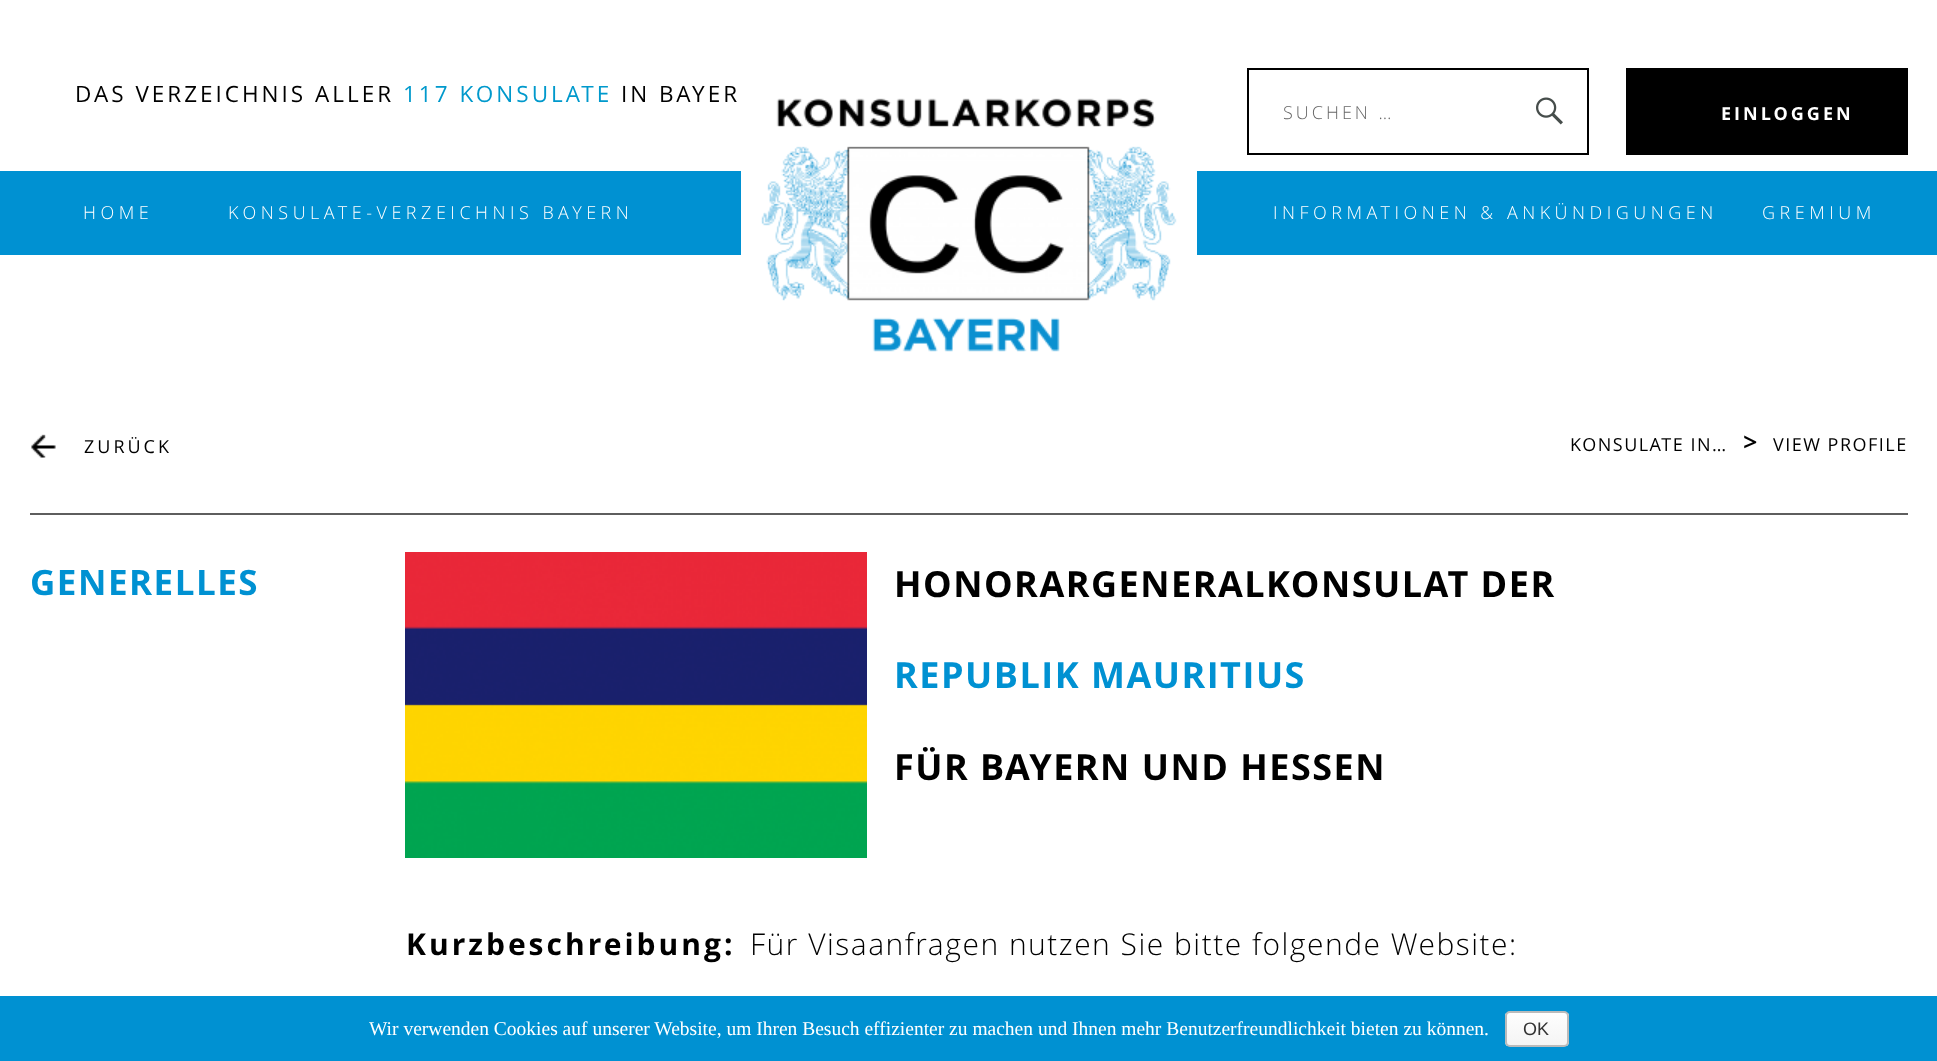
<?xml version="1.0" encoding="UTF-8"?>
<svg xmlns="http://www.w3.org/2000/svg" width="1937" height="1061">
    <defs>
        <clipPath id="clip1"><rect x="1505" y="1011" width="64" height="36" rx="5"/></clipPath>
        <linearGradient id="g1" gradientUnits="userSpaceOnUse" x1="1537" y1="1013" x2="1537" y2="1046"><stop offset="0" stop-color="#FEFEFE"/><stop offset="1" stop-color="#F4F4F4"/></linearGradient>
    </defs>
    <rect width="100%" height="100%" fill="#FFFFFF"/>
    <text x="75" y="102" font-family="Open Sans" font-size="22.5" letter-spacing="3" fill="#000000">DAS VERZEICHNIS ALLER</text>
    <text x="403" y="102" font-family="Open Sans" font-size="22.5" letter-spacing="3" fill="#0099CC">117 KONSULATE</text>
    <text x="621" y="102" font-family="Open Sans" font-size="22.5" letter-spacing="3" fill="#000000">IN BAYER</text>
    <rect x="1248" y="69" width="340" height="85" fill="none" stroke="#000000" stroke-width="2"/>
    <text x="1283" y="119" font-family="Open Sans" font-size="18" font-weight="300" letter-spacing="3" fill="#686868">SUCHEN …</text>
    <image x="1536" y="97" width="27" height="28" href="img_01.png"/>
    <rect x="1626" y="68" width="282" height="87" fill="#000000"/>
    <text x="1721" y="120" font-family="Open Sans" font-size="18" font-weight="700" letter-spacing="3" fill="#FFFFFF">EINLOGGEN</text>
    <rect x="0" y="171" width="1937" height="84" fill="#0091D2"/>
    <rect x="741" y="171" width="456" height="84" fill="#FFFFFF"/>
    <image x="761" y="98" width="416" height="254" href="img_02.png"/>
    <text x="83" y="219" font-family="Open Sans" font-size="18" font-weight="300" letter-spacing="4.5" fill="#FFFFFF">HOME</text>
    <text x="228" y="219" font-family="Open Sans" font-size="18" font-weight="300" letter-spacing="4.5" fill="#FFFFFF">KONSULATE-VERZEICHNIS BAYERN</text>
    <text x="1273" y="219" font-family="Open Sans" font-size="18" font-weight="300" letter-spacing="4.5" fill="#FFFFFF">INFORMATIONEN &amp; ANKÜNDIGUNGEN</text>
    <text x="1762" y="219" font-family="Open Sans" font-size="18" font-weight="300" letter-spacing="4.5" fill="#FFFFFF">GREMIUM</text>
    <image x="31" y="434" width="25" height="24" href="img_03.png"/>
    <text x="84" y="453" font-family="Open Sans" font-size="18" letter-spacing="3" fill="#000000">ZURÜCK</text>
    <text x="1570" y="451" font-family="Open Sans" font-size="18" letter-spacing="1.5" fill="#000000">KONSULATE IN…</text>
    <text x="1743" y="451" font-family="'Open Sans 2'" font-size="24" font-weight="700" letter-spacing="1.5" fill="#000000">&gt;</text>
    <text x="1773" y="451" font-family="Open Sans" font-size="18" letter-spacing="1.5" fill="#000000">VIEW PROFILE</text>
    <rect x="30" y="513" width="1878" height="2" fill="#5E5E5E"/>
    <text x="30" y="595" font-family="Open Sans" font-size="35" font-weight="700" letter-spacing="1.5" fill="#0091D2">GENERELLES</text>
    <image x="405" y="552" width="462" height="306" href="img_04.png"/>
    <text x="894" y="597" font-family="Open Sans" font-size="36" font-weight="700" letter-spacing="1.5" fill="#000000">HONORARGENERALKONSULAT DER</text>
    <text x="894" y="688" font-family="Open Sans" font-size="36" font-weight="700" letter-spacing="1.5" fill="#0091D2">REPUBLIK MAURITIUS</text>
    <text x="894" y="780" font-family="Open Sans" font-size="36" font-weight="700" letter-spacing="1.5" fill="#000000">FÜR BAYERN UND HESSEN</text>
    <text x="406" y="955" font-family="Open Sans" font-size="30" font-weight="700" letter-spacing="3" fill="#000000">Kurzbeschreibung:</text>
    <text x="750" y="955" font-family="Open Sans" font-size="30" font-weight="300" letter-spacing="1.5" fill="#000000">Für Visaanfragen nutzen Sie bitte folgende Website:</text>
    <rect x="0" y="996" width="1937" height="65" fill="#0091D2"/>
    <text x="369" y="1035" font-family="Liberation Serif" font-size="19.5" fill="#FFFFFF">Wir verwenden Cookies auf unserer Website, um Ihren Besuch effizienter zu machen und Ihnen mehr Benutzerfreundlichkeit bieten zu können.</text>
    <g clip-path="url(#clip1)">
        <rect x="1505" y="1013" width="64" height="33" fill="url(#g1)"/>
    </g>
    <rect x="1506" y="1012" width="62" height="34" rx="4" fill="none" stroke="#BBBBBB" stroke-width="2"/>
    <text x="1523" y="1035" font-family="Liberation Sans" font-size="18" fill="#333333">OK</text>
</svg>
